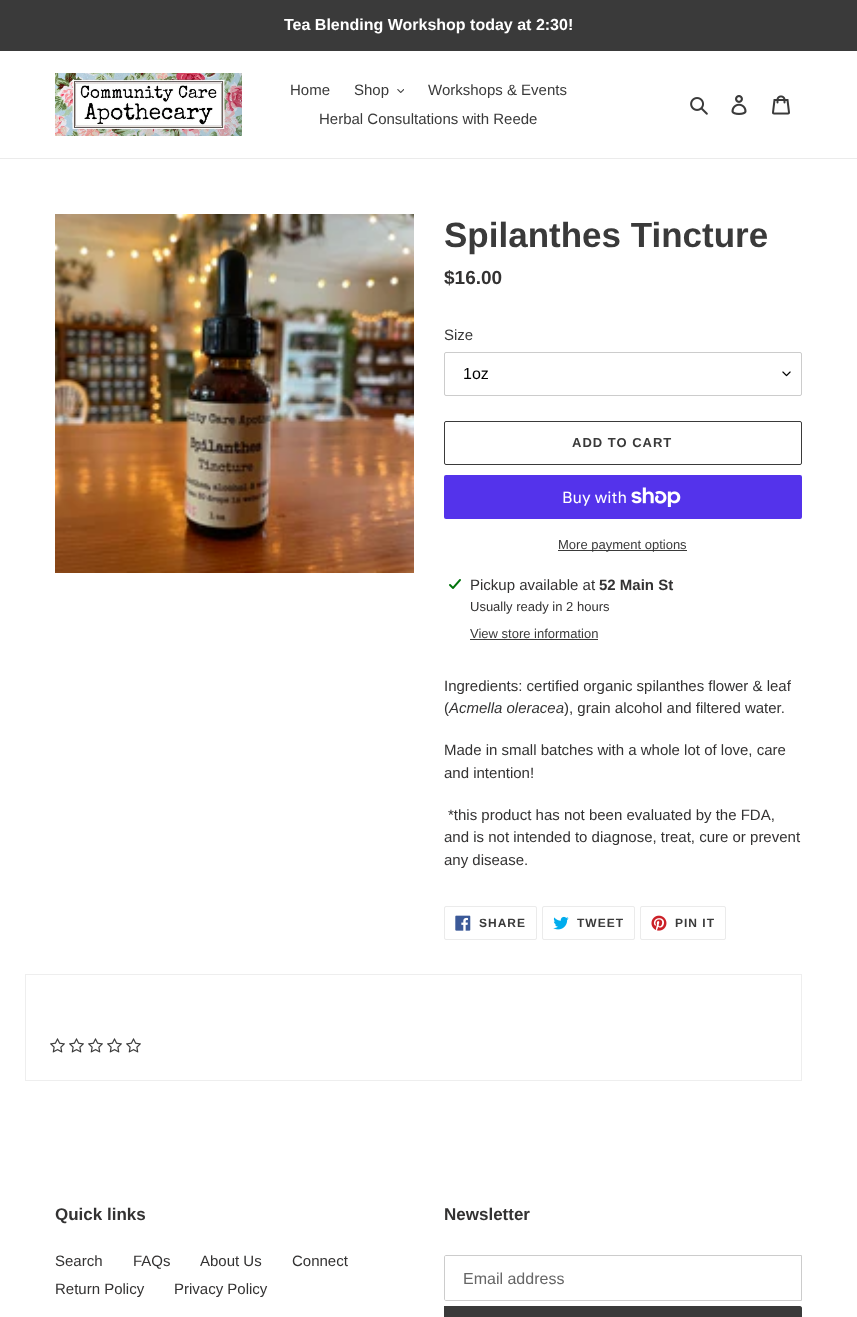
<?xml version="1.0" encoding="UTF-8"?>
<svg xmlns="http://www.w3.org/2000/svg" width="857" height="1317">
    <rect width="100%" height="100%" fill="#FFFFFF"/>
    <rect x="0" y="0" width="857" height="51" fill="#3A3A3A"/>
    <text x="284" y="30" font-family="Liberation Sans" font-size="16" font-weight="700" fill="#FFFFFF">Tea Blending Workshop today at 2:30!</text>
    <rect x="0" y="158" width="857" height="1" fill="#EBEBEB"/>
    <image x="55" y="73" width="187" height="63" href="img_01.png"/>
    <text x="290" y="95" font-family="Liberation Sans" font-size="15" fill="#3A3A3A">Home</text>
    <text x="354" y="95" font-family="Liberation Sans" font-size="15" fill="#3A3A3A">Shop</text>
    <image x="397" y="89" width="7" height="4" href="img_02.png"/>
    <text x="428" y="95" font-family="Liberation Sans" font-size="15" fill="#3A3A3A">Workshops &amp; Events</text>
    <text x="319" y="124" font-family="Liberation Sans" font-size="15" fill="#3A3A3A">Herbal Consultations with Reede</text>
    <image x="690" y="97" width="18" height="18" href="img_03.png"/>
    <image x="731" y="95" width="16" height="20" href="img_04.png"/>
    <image x="772" y="95" width="18" height="20" href="img_05.png"/>
    <image x="55" y="214" width="359" height="359" href="img_06.png"/>
    <text x="444" y="247" font-family="Liberation Sans" font-size="35" font-weight="700" fill="#3A3A3A">Spilanthes Tincture</text>
    <text x="444" y="284" font-family="Liberation Sans" font-size="19" font-weight="700" fill="#333232">$16.00</text>
    <text x="444" y="340" font-family="Liberation Sans" font-size="15" fill="#3A3A3A">Size</text>
    <image x="782" y="371" width="9" height="6" href="img_07.png"/>
    <rect x="444.5" y="352.5" width="357" height="43" rx="1.5" fill="none" stroke="#CCCCCC"/>
    <text x="463" y="379" font-family="Liberation Sans" font-size="16" fill="#000000">1oz</text>
    <rect x="444.5" y="421.5" width="357" height="43" rx="1.5" fill="none" stroke="#3A3A3A"/>
    <text x="572" y="447" font-family="Liberation Sans" font-size="13" font-weight="700" letter-spacing="1" fill="#3A3A3A">ADD TO CART</text>
    <rect x="444" y="475" width="358" height="44" rx="2" fill="#5433EB"/>
    <text x="562" y="503" font-family="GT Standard" font-size="16" fill="#FFFFFF">Buy with</text>
    <image x="631" y="487" width="50" height="20" href="img_08.png"/>
    <rect x="558" y="550" width="129" height="1" fill="#3A3A3A"/>
    <text x="558" y="549" font-family="Liberation Sans" font-size="13" fill="#3A3A3A">More payment options</text>
    <image x="449" y="579" width="12" height="10" href="img_09.png"/>
    <text x="470" y="590" font-family="Liberation Sans" font-size="15" fill="#333232">Pickup available at</text>
    <text x="599" y="590" font-family="Liberation Sans" font-size="15" font-weight="700" fill="#333232">52 Main St</text>
    <text x="470" y="611" font-family="Liberation Sans" font-size="13" fill="#333232">Usually ready in 2 hours</text>
    <text x="470" y="638" font-family="Liberation Sans" font-size="13" fill="#3A3A3A">View store information</text>
    <rect x="470" y="639" width="128" height="1" fill="#3A3A3A"/>
    <text font-family="Liberation Sans" font-size="15" fill="#333232">
        <tspan x="444" y="691">Ingredients: certified organic spilanthes flower &amp; leaf</tspan>
        <tspan x="444" y="713">(</tspan>
    </text>
    <text x="449" y="713" font-family="Liberation Sans" font-size="15" font-style="italic" fill="#333232">Acmella oleracea</text>
    <text x="564" y="713" font-family="Liberation Sans" font-size="15" fill="#333232">), grain alcohol and filtered water.</text>
    <text font-family="Liberation Sans" font-size="15" fill="#333232">
        <tspan x="444" y="755">Made in small batches with a whole lot of love, care</tspan>
        <tspan x="444" y="778">and intention!</tspan>
    </text>
    <text x="448" y="820" font-family="Liberation Sans" font-size="15" fill="#333232">*this product has not been evaluated by the FDA,</text>
    <text font-family="Liberation Sans" font-size="15" fill="#333232">
        <tspan x="444" y="842">and is not intended to diagnose, treat, cure or prevent</tspan>
        <tspan x="444" y="865">any disease.</tspan>
    </text>
    <rect x="444.5" y="906.5" width="92" height="33" rx="1.5" fill="none" stroke="#EBEBEB"/>
    <image x="455" y="915" width="16" height="16" href="img_10.png"/>
    <text x="479" y="927" font-family="Liberation Sans" font-size="12" font-weight="700" letter-spacing="1" fill="#3A3A3A">SHARE</text>
    <rect x="542.5" y="906.5" width="92" height="33" rx="1.5" fill="none" stroke="#EBEBEB"/>
    <image x="553" y="916" width="16" height="14" href="img_11.png"/>
    <text x="577" y="927" font-family="Liberation Sans" font-size="12" font-weight="700" letter-spacing="1" fill="#3A3A3A">TWEET</text>
    <rect x="640.5" y="906.5" width="85" height="33" rx="1.5" fill="none" stroke="#EBEBEB"/>
    <image x="651" y="915" width="16" height="16" href="img_12.png"/>
    <text x="675" y="927" font-family="Liberation Sans" font-size="12" font-weight="700" letter-spacing="1" fill="#3A3A3A">PIN IT</text>
    <rect x="25.5" y="974.5" width="776" height="106" fill="none" stroke="#EEEEEE"/>
    <image x="50" y="1038" width="15" height="15" href="img_13.png"/>
    <image x="69" y="1038" width="15" height="15" href="img_13.png"/>
    <image x="88" y="1038" width="15" height="15" href="img_13.png"/>
    <image x="107" y="1038" width="15" height="15" href="img_13.png"/>
    <image x="126" y="1038" width="15" height="15" href="img_13.png"/>
    <text x="55" y="1220" font-family="Liberation Sans" font-size="17" font-weight="700" fill="#333232">Quick links</text>
    <text x="55" y="1266" font-family="Liberation Sans" font-size="15" fill="#333232">Search</text>
    <text x="133" y="1266" font-family="Liberation Sans" font-size="15" fill="#333232">FAQs</text>
    <text x="200" y="1266" font-family="Liberation Sans" font-size="15" fill="#333232">About Us</text>
    <text x="292" y="1266" font-family="Liberation Sans" font-size="15" fill="#333232">Connect</text>
    <text x="55" y="1294" font-family="Liberation Sans" font-size="15" fill="#333232">Return Policy</text>
    <text x="174" y="1294" font-family="Liberation Sans" font-size="15" fill="#333232">Privacy Policy</text>
    <text x="444" y="1220" font-family="Liberation Sans" font-size="17" font-weight="700" fill="#333232">Newsletter</text>
    <path d="M 446 1255.5 H 801.5 V 1300.5 H 446 C 445 1300.5 444.5 1300 444.5 1299 V 1257 C 444.5 1256 445 1255.5 446 1255.5 Z" fill="none" stroke="#CCCCCC"/>
    <text x="463" y="1284" font-family="Liberation Sans" font-size="16" fill="#666666">Email address</text>
    <path d="M 444 1306 H 800 C 801 1306 802 1307 802 1308 V 1317 C 802 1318 801 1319 800 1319 H 444 Z" fill="#3A3A3A"/>
</svg>
